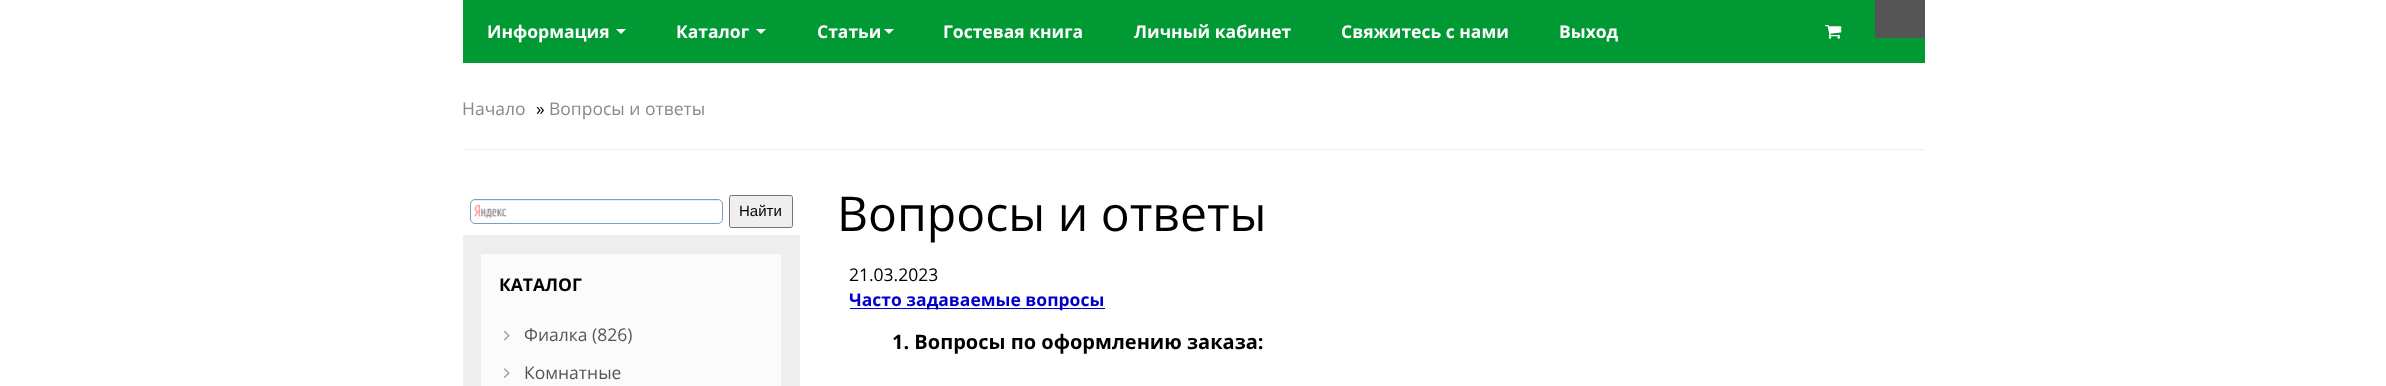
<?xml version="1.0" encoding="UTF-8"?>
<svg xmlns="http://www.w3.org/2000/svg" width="2386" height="386">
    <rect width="100%" height="100%" fill="#FFFFFF"/>
    <rect x="463" y="0" width="1462" height="63" fill="#009933"/>
    <text x="487" y="38" font-family="Open Sans" font-size="17.5" font-weight="700" fill="#FFFFFF">Информация</text>
    <path d="M 616 29 H 626 L 621 34 Z" fill="#FFFFFF"/>
    <text x="676" y="38" font-family="Open Sans" font-size="17.5" font-weight="700" fill="#FFFFFF">Каталог</text>
    <path d="M 756 29 H 766 L 761 34 Z" fill="#FFFFFF"/>
    <text x="817" y="38" font-family="Open Sans" font-size="17.5" font-weight="700" fill="#FFFFFF">Статьи</text>
    <path d="M 884 29 H 894 L 889 34 Z" fill="#FFFFFF"/>
    <text x="943" y="38" font-family="Open Sans" font-size="17.5" font-weight="700" fill="#FFFFFF">Гостевая книга</text>
    <text x="1134" y="38" font-family="Open Sans" font-size="17.5" font-weight="700" fill="#FFFFFF">Личный кабинет</text>
    <text x="1341" y="38" font-family="Open Sans" font-size="17.5" font-weight="700" fill="#FFFFFF">Свяжитесь с нами</text>
    <text x="1559" y="38" font-family="Open Sans" font-size="17.5" font-weight="700" fill="#FFFFFF">Выход</text>
    <image x="1825" y="25" width="17" height="14" href="img_01.png"/>
    <rect x="1875" y="0" width="50" height="38" fill="#555555"/>
    <rect x="463" y="149" width="1462" height="1" fill="#EEEEEE"/>
    <text x="462" y="115" font-family="Open Sans" font-size="17.5" fill="#888888">Начало</text>
    <text x="536" y="115" font-family="Open Sans" font-size="17.5" fill="#000000">»</text>
    <text x="549" y="115" font-family="Open Sans" font-size="17.5" fill="#888888">Вопросы и ответы</text>
    <image x="473" y="205" width="34" height="14" href="img_02.png"/>
    <path d="M 475 201 H 718 C 720 201 721 203 721 205 V 204 C 721 202 719 200 717 200 H 475 C 473 200 471 202 471 204 V 205 C 471 203 473 201 475 201 Z" fill="#ECECEC"/>
    <rect x="470.5" y="199.5" width="252" height="24" rx="4.5" fill="none" stroke="#7F9DB9"/>
    <rect x="729.5" y="195.5" width="63" height="32" rx="2" fill="#EFEFEF" stroke="#767676"/>
    <text x="739" y="216" font-family="Liberation Sans" font-size="15" fill="#000000">Найти</text>
    <rect x="463" y="235" width="337" height="151" fill="#EEEEEE"/>
    <rect x="481" y="254" width="300" height="132" fill="#FBFBFB"/>
    <text x="499" y="291" font-family="Open Sans" font-size="17.5" font-weight="700" fill="#000000">КАТАЛОГ</text>
    <image x="504" y="330" width="6" height="11" href="img_03.png"/>
    <text x="524" y="341" font-family="Open Sans" font-size="17.5" fill="#555555">Фиалка (826)</text>
    <image x="504" y="368" width="6" height="10" href="img_04.png"/>
    <text x="524" y="379" font-family="Open Sans" font-size="17.5" fill="#555555">Комнатные</text>
    <text x="837" y="231" font-family="Open Sans" font-size="48.1" fill="#000000">Вопросы и ответы</text>
    <text x="849" y="281" font-family="Open Sans" font-size="17.5" fill="#000000">21.03.2023</text>
    <rect x="850" y="308" width="255" height="1" fill="#0000CC"/>
    <text x="849" y="306" font-family="Open Sans" font-size="17.5" font-weight="700" fill="#0000CC">Часто задаваемые вопросы</text>
    <text x="892" y="349" font-family="Open Sans" font-size="20" font-weight="700" fill="#000000">1. Вопросы по оформлению заказа:</text>
</svg>
